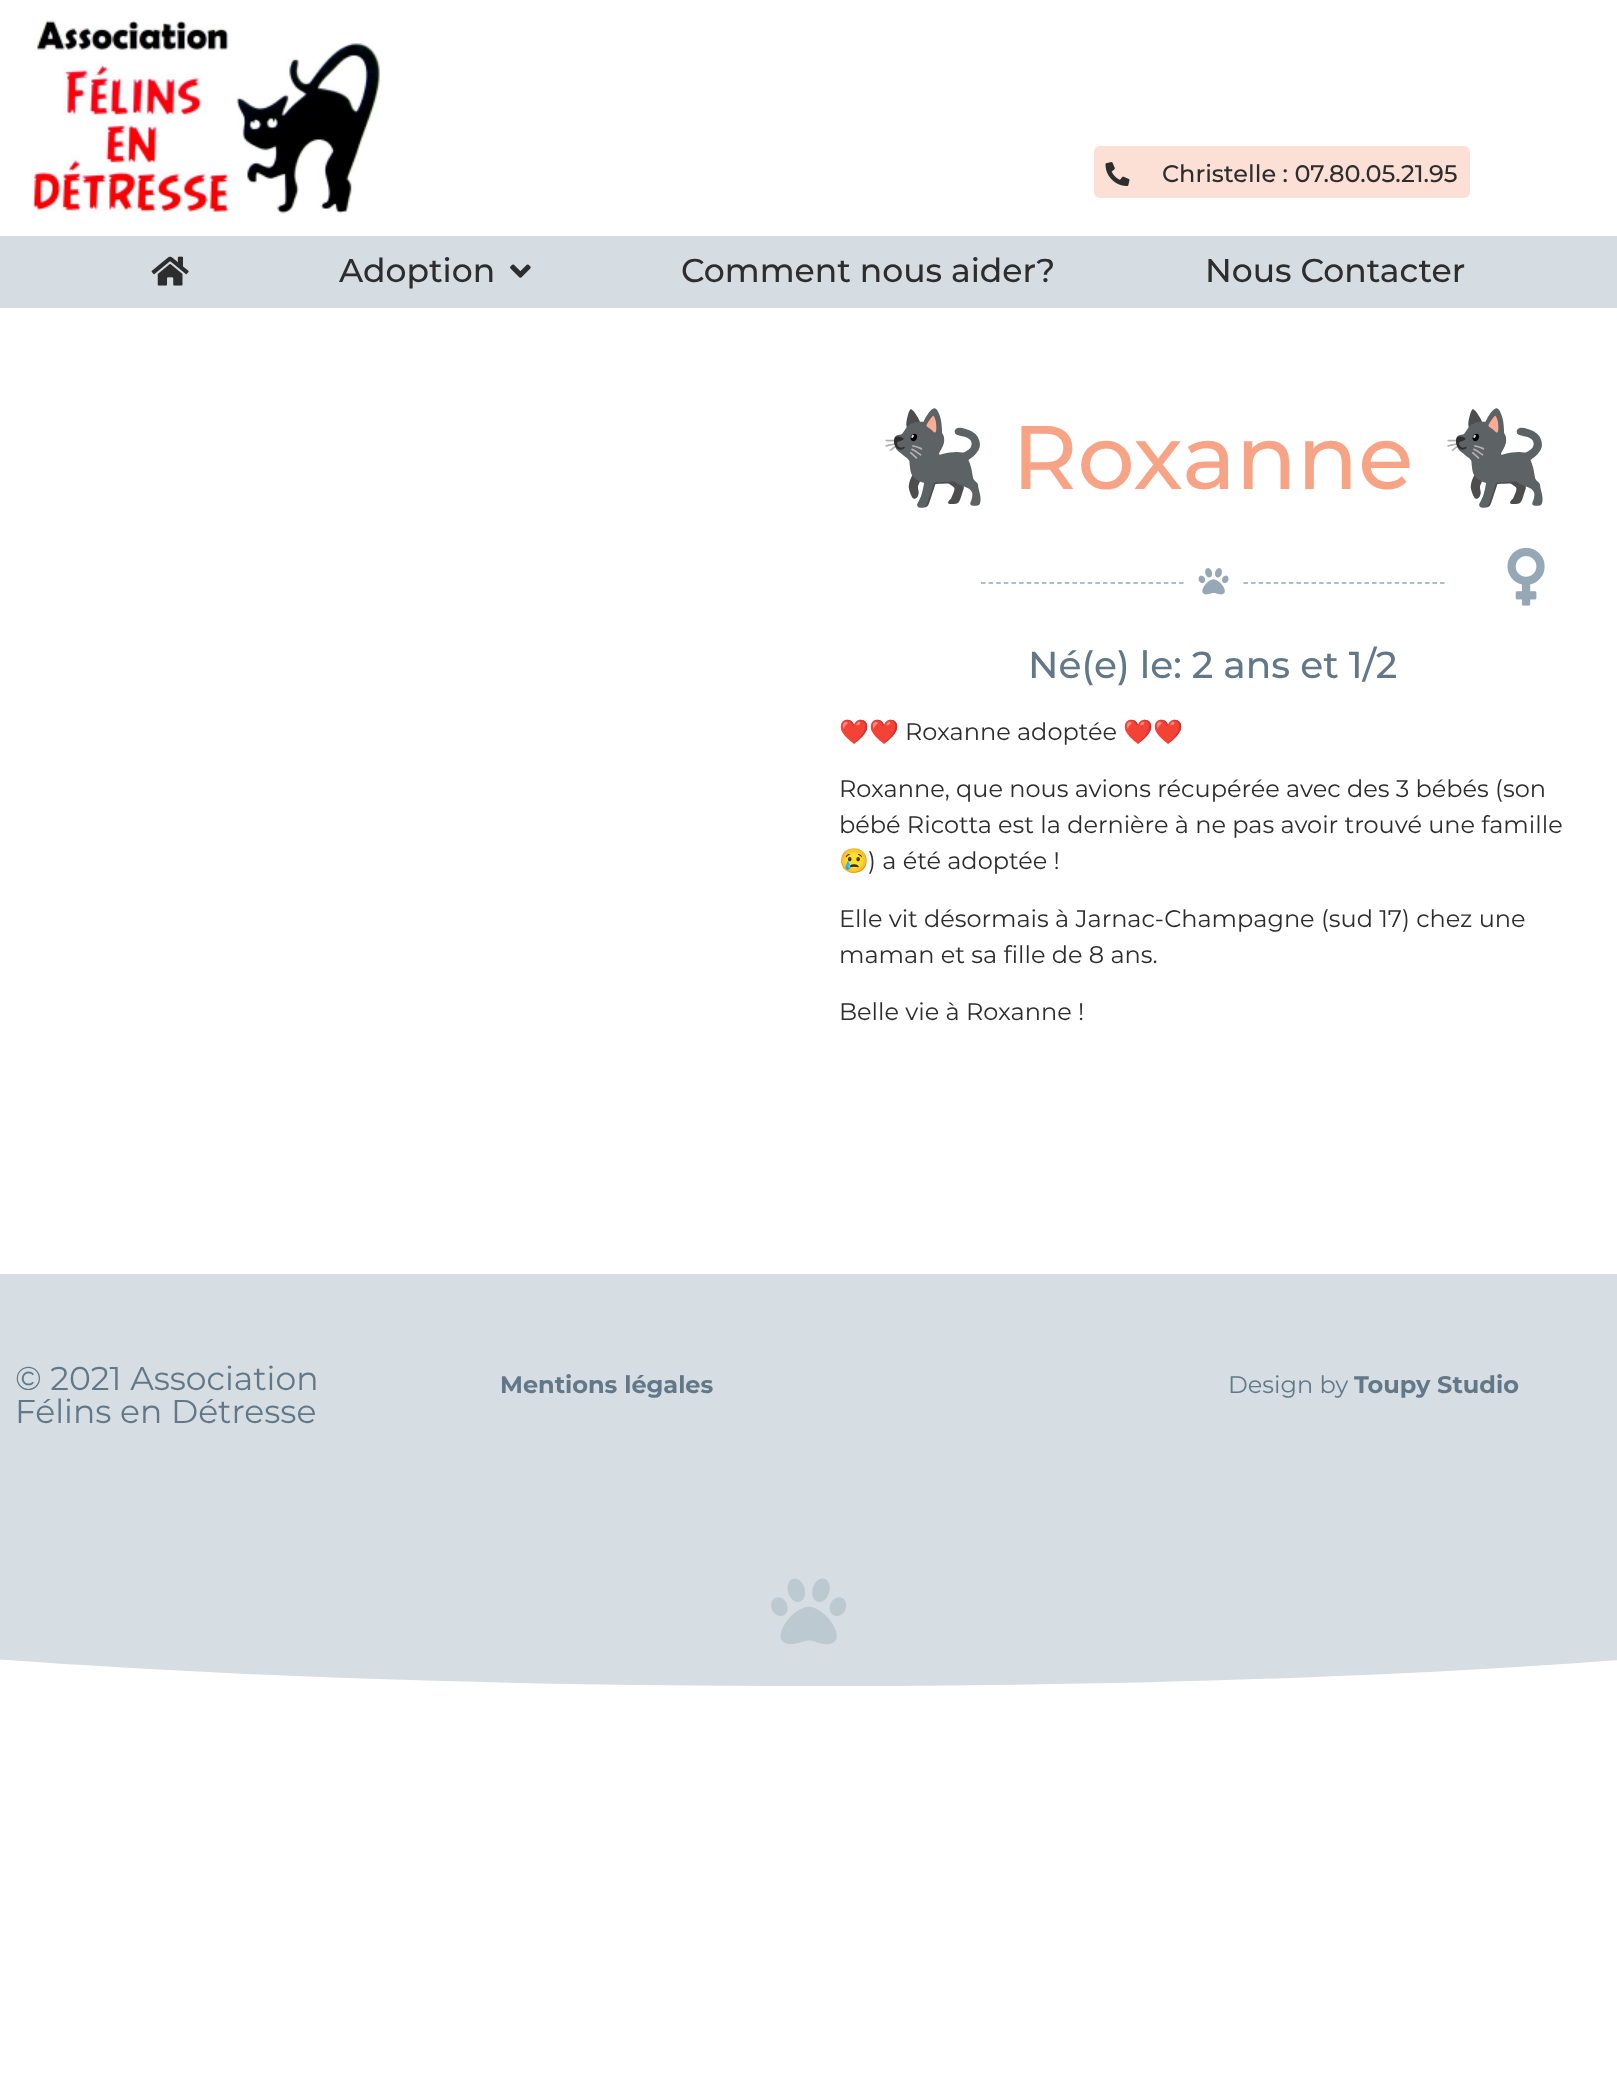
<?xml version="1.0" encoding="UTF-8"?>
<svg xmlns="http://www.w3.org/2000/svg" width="1617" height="2082">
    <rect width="100%" height="100%" fill="#FFFFFF"/>
    <image x="31" y="19" width="351" height="195" href="img_01.png"/>
    <rect x="1094" y="146" width="376" height="52" rx="6" fill="#FCDFD5"/>
    <image x="1105" y="162" width="25" height="24" href="img_02.png"/>
    <text x="1162" y="182" font-family="Montserrat" font-size="24" font-weight="500" fill="#2D2D2D">Christelle : 07.80.05.21.95</text>
    <rect x="0" y="236" width="1617" height="72" fill="#D6DDE2"/>
    <image x="151" y="256" width="38" height="30" href="img_03.png"/>
    <text x="339" y="282" font-family="Montserrat" font-size="33" font-weight="500" fill="#2D2D2D">Adoption</text>
    <image x="510" y="264" width="21" height="14" href="img_04.png"/>
    <text x="681" y="282" font-family="Montserrat" font-size="33" font-weight="500" fill="#2D2D2D">Comment nous aider?</text>
    <text x="1205" y="282" font-family="Montserrat" font-size="33" font-weight="500" fill="#2D2D2D">Nous Contacter</text>
    <text x="876" y="489" font-family="Noto Color Emoji" font-size="90" fill="#F7A486">🐈‍⬛</text>
    <text x="1012" y="489" font-family="Montserrat" font-size="90" font-weight="500" fill="#F7A486">Roxanne</text>
    <text x="1438" y="489" font-family="Noto Color Emoji" font-size="90" fill="#F7A486">🐈‍⬛</text>
    <path d="M 981 583 H 1183.5" fill="none" stroke="#96A8B5" stroke-width="1.5" stroke-dasharray="4.5 3.12"/>
    <image x="1198" y="568" width="31" height="27" href="img_05.png"/>
    <path d="M 1243.5 583 H 1444.5" fill="none" stroke="#96A8B5" stroke-width="1.5" stroke-dasharray="4.5 3.06"/>
    <image x="1507" y="547" width="38" height="59" href="img_06.png"/>
    <text x="1028" y="678" font-family="Montserrat" font-size="37.5" font-weight="500" fill="#627888">Né(e) le: 2 ans et 1/2</text>
    <text x="839" y="740" font-family="Noto Color Emoji" font-size="24" fill="#2D2D2D">❤️❤️</text>
    <text x="905" y="740" font-family="Montserrat" font-size="24" fill="#2D2D2D">Roxanne adoptée</text>
    <text x="1123" y="740" font-family="Noto Color Emoji" font-size="24" fill="#2D2D2D">❤️❤️</text>
    <text font-family="Montserrat" font-size="24" fill="#2D2D2D">
        <tspan x="839" y="797">Roxanne, que nous avions récupérée avec des 3 bébés (son</tspan>
        <tspan x="839" y="833">bébé Ricotta est la dernière à ne pas avoir trouvé une famille</tspan>
    </text>
    <text x="839" y="869" font-family="Noto Color Emoji" font-size="24" fill="#2D2D2D">😢</text>
    <text x="868" y="869" font-family="Montserrat" font-size="24" fill="#2D2D2D">) a été adoptée !</text>
    <text font-family="Montserrat" font-size="24" fill="#2D2D2D">
        <tspan x="839" y="927">Elle vit désormais à Jarnac-Champagne (sud 17) chez une</tspan>
        <tspan x="839" y="963">maman et sa fille de 8 ans.</tspan>
    </text>
    <text x="839" y="1020" font-family="Montserrat" font-size="24" fill="#2D2D2D">Belle vie à Roxanne !</text>
    <rect x="0" y="1274" width="1617" height="246" fill="#D7DEE3"/>
    <text font-family="Montserrat" font-size="33" fill="#627888">
        <tspan x="15" y="1390">© 2021 Association</tspan>
        <tspan x="15" y="1423">Félins en Détresse</tspan>
    </text>
    <text x="500" y="1393" font-family="Montserrat" font-size="24" font-weight="700" fill="#627888">Mentions légales</text>
    <text x="1228" y="1393" font-family="Montserrat" font-size="24" fill="#627888">Design by</text>
    <text x="1354" y="1393" font-family="Montserrat" font-size="24" font-weight="700" fill="#627888">Toupy Studio</text>
    <path d="M 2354 1527 V 1520 H -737 V 1527 C -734 1558 -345 1685 809 1686 C 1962 1687 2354 1557 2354 1527 Z" fill="#D7DEE3"/>
    <image x="771" y="1578" width="76" height="67" href="img_07.png"/>
</svg>
